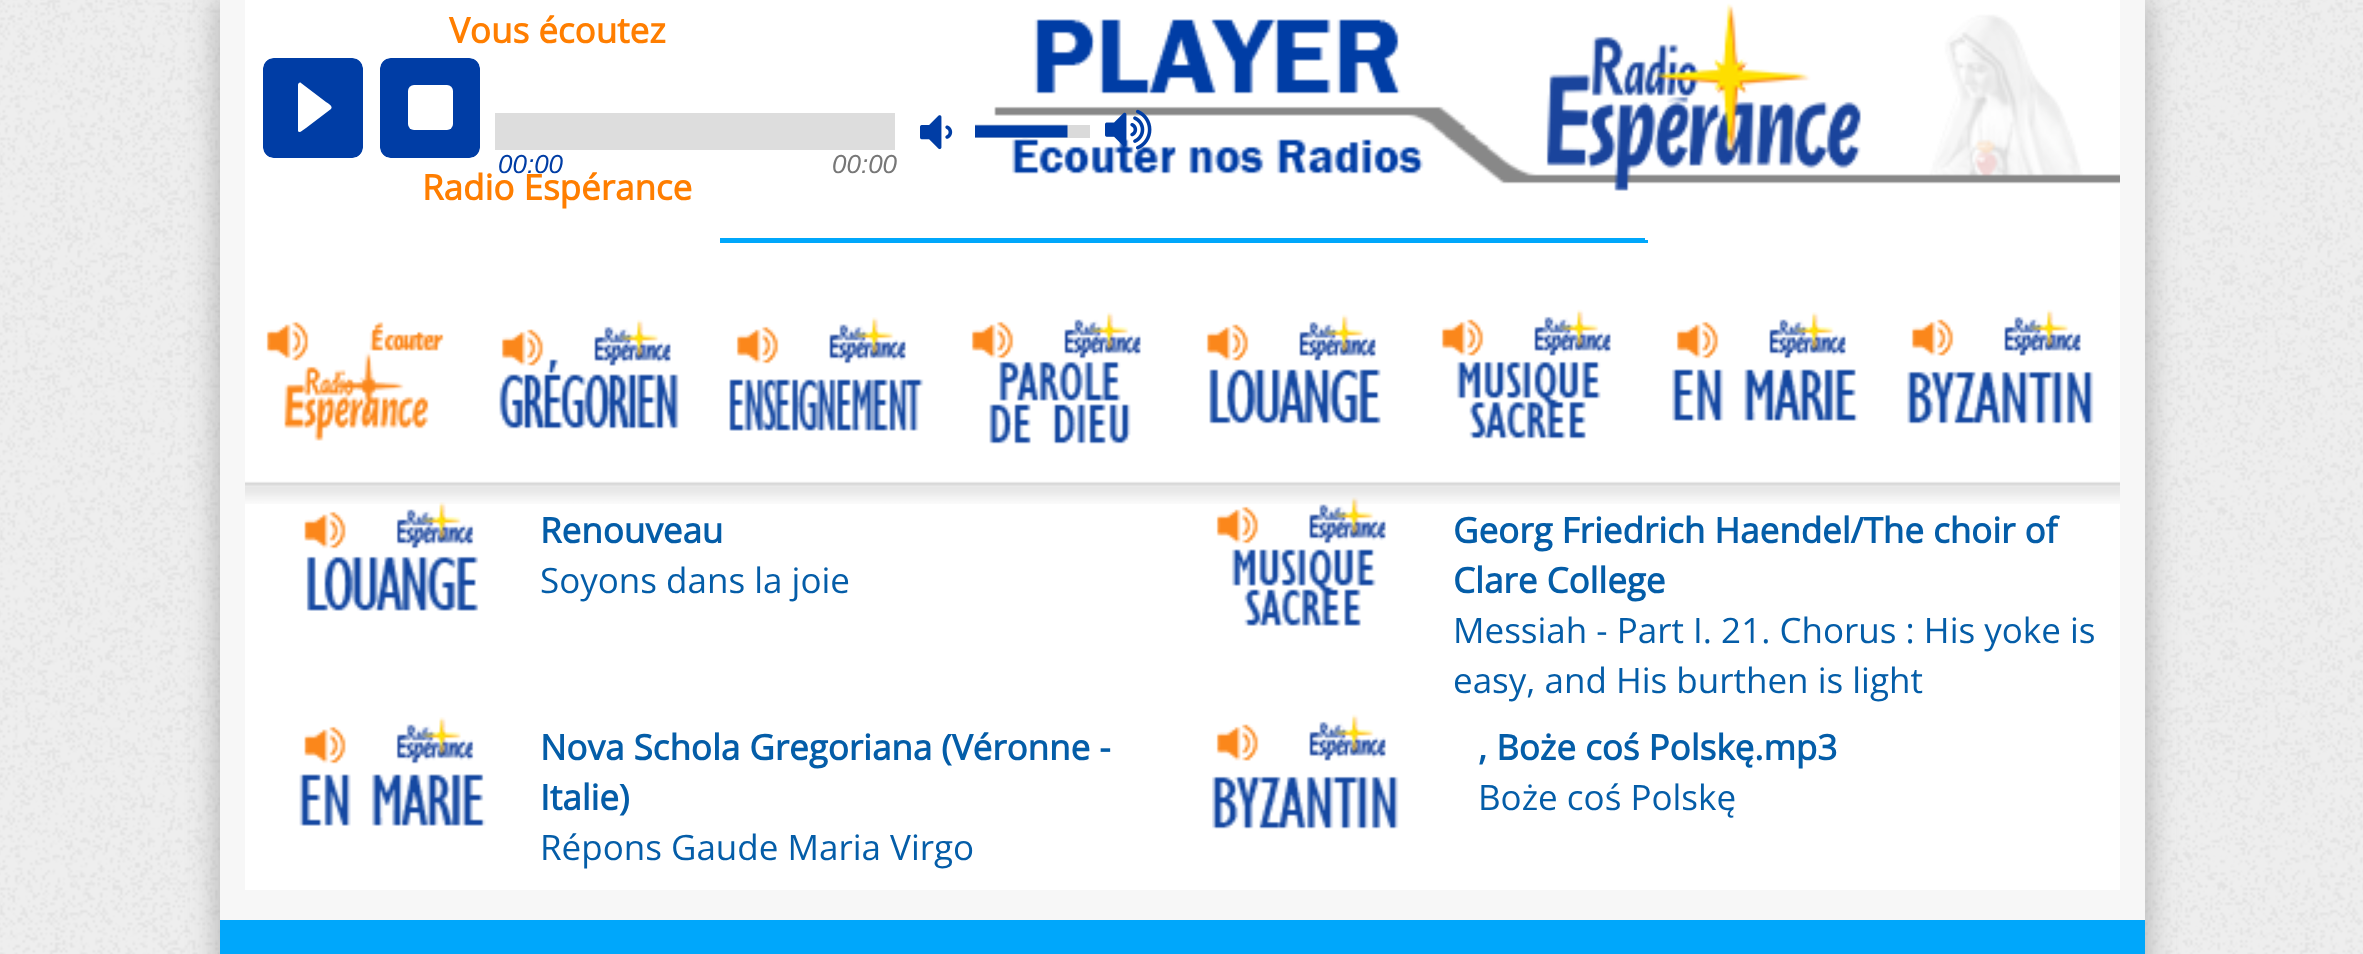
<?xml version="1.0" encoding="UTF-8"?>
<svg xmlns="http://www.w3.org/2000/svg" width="2363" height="954">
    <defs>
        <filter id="blur1" x="-50%" y="-200%" width="200%" height="500%"><feGaussianBlur stdDeviation="15"/></filter>
        <clipPath id="clip1"><rect x="263" y="58" width="100" height="100" rx="10"/></clipPath>
        <clipPath id="clip2"><rect x="380" y="58" width="100" height="100" rx="10"/></clipPath>
    </defs>
    <rect width="100%" height="100%" fill="#EEEEEE"/>
    <image x="0" y="0" width="2363" height="954" href="img_01.png"/>
    <rect x="218" y="-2" width="1930" height="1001" fill="#777777" fill-opacity="0.5" filter="url(#blur1)"/>
    <rect x="220" y="0" width="1925" height="920" fill="#F7F7F7"/>
    <rect x="245" y="0" width="1875" height="465" fill="#FFFFFF"/>
    <image x="994" y="3" width="1126" height="188" href="img_02.png"/>
    <text x="449" y="43" font-family="Open Sans" font-size="35" font-weight="700" fill="#FF7E00">Vous écoutez</text>
    <g clip-path="url(#clip1)">
        <rect x="263" y="58" width="100" height="100" rx="11" fill="#003DA5"/>
    </g>
    <path d="M 298 85 V 131 C 299 134 303 130 306 128 L 331 109 C 334 106 326 102 326 102 L 301 83 C 300 82 298 83 298 85 Z" fill="#FFFFFF"/>
    <g clip-path="url(#clip2)">
        <rect x="380" y="58" width="100" height="100" rx="11" fill="#003DA5"/>
    </g>
    <rect x="408" y="85" width="45" height="45" rx="6" fill="#FFFFFF"/>
    <rect x="495" y="113" width="400" height="37" fill="#DDDDDD"/>
    <image x="920" y="115" width="33" height="35" href="img_03.png"/>
    <rect x="975" y="125" width="115" height="13" fill="#DADADA"/>
    <image x="975" y="124" width="93" height="14" href="img_04.png"/>
    <image x="1105" y="109" width="47" height="41" href="img_05.png"/>
    <text x="498" y="173" font-family="Liberation Sans" font-size="26" font-style="italic" fill="#003DA5">00:00</text>
    <text x="832" y="173" font-family="Liberation Sans" font-size="26" font-style="italic" fill="#777777">00:00</text>
    <text x="422" y="200" font-family="Open Sans" font-size="35" font-weight="700" fill="#FF7E00">Radio Espérance</text>
    <rect x="720" y="238" width="928" height="2" fill="#00A7FB"/>
    <rect x="1645" y="238" width="3" height="5" fill="#FFFFFF"/>
    <rect x="720" y="240" width="928" height="3" fill="#00A7FB"/>
    <image x="266" y="321" width="178" height="120" href="img_06.png"/>
    <image x="499" y="319" width="180" height="110" href="img_07.png"/>
    <image x="729" y="317" width="195" height="114" href="img_08.png"/>
    <image x="971" y="312" width="170" height="132" href="img_09.png"/>
    <image x="1206" y="314" width="175" height="110" href="img_10.png"/>
    <image x="1441" y="309" width="170" height="130" href="img_11.png"/>
    <image x="1672" y="312" width="186" height="109" href="img_12.png"/>
    <image x="1907" y="309" width="187" height="115" href="img_13.png"/>
    <rect x="245" y="484" width="1875" height="406" fill="#FFFFFF"/>
    <image x="304" y="502" width="175" height="109" href="img_15.png"/>
    <image x="1216" y="497" width="170" height="129" href="img_16.png"/>
    <image x="245" y="465" width="1875" height="39" href="img_14.png"/>
    <text x="540" y="543" font-family="Open Sans" font-size="35" font-weight="700" fill="#045DA8">Renouveau</text>
    <text x="540" y="593" font-family="Open Sans" font-size="35" fill="#045DA8">Soyons dans la joie</text>
    <text font-family="Open Sans" font-size="35" font-weight="700" fill="#045DA8">
        <tspan x="1453" y="543">Georg Friedrich Haendel/The choir of</tspan>
        <tspan x="1453" y="593">Clare College</tspan>
    </text>
    <text font-family="Open Sans" font-size="35" fill="#045DA8">
        <tspan x="1453" y="643">Messiah - Part I. 21. Chorus : His yoke is</tspan>
        <tspan x="1453" y="693">easy, and His burthen is light</tspan>
    </text>
    <image x="299" y="717" width="187" height="109" href="img_17.png"/>
    <text font-family="Open Sans" font-size="35" font-weight="700" fill="#045DA8">
        <tspan x="540" y="760">Nova Schola Gregoriana (Véronne -</tspan>
        <tspan x="540" y="810">Italie)</tspan>
    </text>
    <text x="540" y="860" font-family="Open Sans" font-size="35" fill="#045DA8">Répons Gaude Maria Virgo</text>
    <image x="1212" y="714" width="187" height="115" href="img_18.png"/>
    <text x="1478" y="760" font-family="Open Sans" font-size="35" font-weight="700" fill="#045DA8">, Boże coś Polskę.mp3</text>
    <text x="1478" y="810" font-family="Open Sans" font-size="35" fill="#045DA8">Boże coś Polskę</text>
    <rect x="220" y="920" width="1925" height="34" fill="#00A7FB"/>
</svg>
